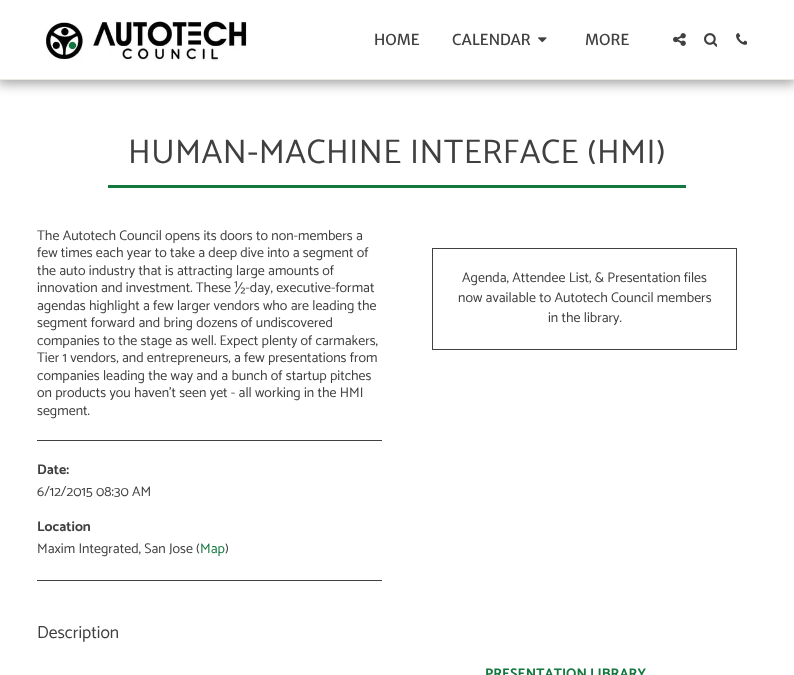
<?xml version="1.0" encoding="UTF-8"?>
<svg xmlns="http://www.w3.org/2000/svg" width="794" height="675">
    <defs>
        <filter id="blur1" x="-50%" y="-200%" width="200%" height="500%"><feGaussianBlur stdDeviation="6"/></filter>
    </defs>
    <rect width="100%" height="100%" fill="#FFFFFF"/>
    <rect x="-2" y="0" width="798" height="84" fill="#000000" fill-opacity="0.35" filter="url(#blur1)"/>
    <rect x="0" y="0" width="794" height="79" fill="#FFFFFF"/>
    <rect x="0" y="79" width="794" height="1" fill="#E8EAE2"/>
    <image x="45" y="21" width="203" height="41" href="img_01.png"/>
    <text x="374" y="45" font-family="Merriweather Sans" font-size="15" fill="#404040">HOME</text>
    <text x="452" y="45" font-family="Merriweather Sans" font-size="15" fill="#404040">CALENDAR</text>
    <image x="538" y="37" width="9" height="6" href="img_02.png"/>
    <text x="585" y="45" font-family="Merriweather Sans" font-size="15" fill="#404040">MORE</text>
    <image x="673" y="33" width="13" height="13" href="img_03.png"/>
    <image x="704" y="33" width="13" height="14" href="img_04.png"/>
    <image x="736" y="33" width="11" height="12" href="img_05.png"/>
    <rect x="108" y="185" width="578" height="3" fill="#12783D"/>
    <text x="128" y="163" font-family="Catamaran" font-size="34.2" letter-spacing="0.5" fill="#404040">HUMAN-MACHINE INTERFACE (HMI)</text>
    <text font-family="Catamaran" font-size="14" fill="#404040">
        <tspan x="37" y="240">The Autotech Council opens its doors to non-members a</tspan>
        <tspan x="37" y="257">few times each year to take a deep dive into a segment of</tspan>
        <tspan x="37" y="275">the auto industry that is attracting large amounts of</tspan>
        <tspan x="37" y="292">innovation and investment. These ½-day, executive-format</tspan>
        <tspan x="37" y="310">agendas highlight a few larger vendors who are leading the</tspan>
        <tspan x="37" y="327">segment forward and bring dozens of undiscovered</tspan>
        <tspan x="37" y="345">companies to the stage as well. Expect plenty of carmakers,</tspan>
        <tspan x="37" y="362">Tier 1 vendors, and entrepreneurs, a few presentations from</tspan>
        <tspan x="37" y="380">companies leading the way and a bunch of startup pitches</tspan>
        <tspan x="37" y="397">on products you haven't seen yet - all working in the HMI</tspan>
        <tspan x="37" y="415">segment.</tspan>
    </text>
    <rect x="37" y="440" width="345" height="1" fill="#404040"/>
    <text x="37" y="474" font-family="Catamaran" font-size="14" font-weight="700" fill="#404040">Date:</text>
    <text x="37" y="496" font-family="Catamaran" font-size="14" fill="#404040">6/12/2015 08:30 AM</text>
    <text x="37" y="531" font-family="Catamaran" font-size="14" font-weight="700" fill="#404040">Location</text>
    <text x="37" y="553" font-family="Catamaran" font-size="14" fill="#404040">Maxim Integrated, San Jose (</text>
    <text x="200" y="553" font-family="Catamaran" font-size="14" fill="#12783D">Map</text>
    <text x="225" y="553" font-family="Catamaran" font-size="14" fill="#404040">)</text>
    <rect x="37" y="580" width="345" height="1" fill="#404040"/>
    <rect x="432.5" y="248.5" width="304" height="101" fill="none" stroke="#404040"/>
    <text x="462" y="282" font-family="Catamaran" font-size="14" fill="#404040">Agenda, Attendee List, &amp; Presentation files</text>
    <text x="458" y="302" font-family="Catamaran" font-size="14" fill="#404040">now available to Autotech Council members</text>
    <text x="548" y="322" font-family="Catamaran" font-size="14" fill="#404040">in the library.</text>
    <text x="37" y="638" font-family="Catamaran" font-size="17.5" fill="#404040">Description</text>
    <text x="485" y="678" font-family="Catamaran" font-size="14" font-weight="700" fill="#12783D">PRESENTATION LIBRARY</text>
</svg>
